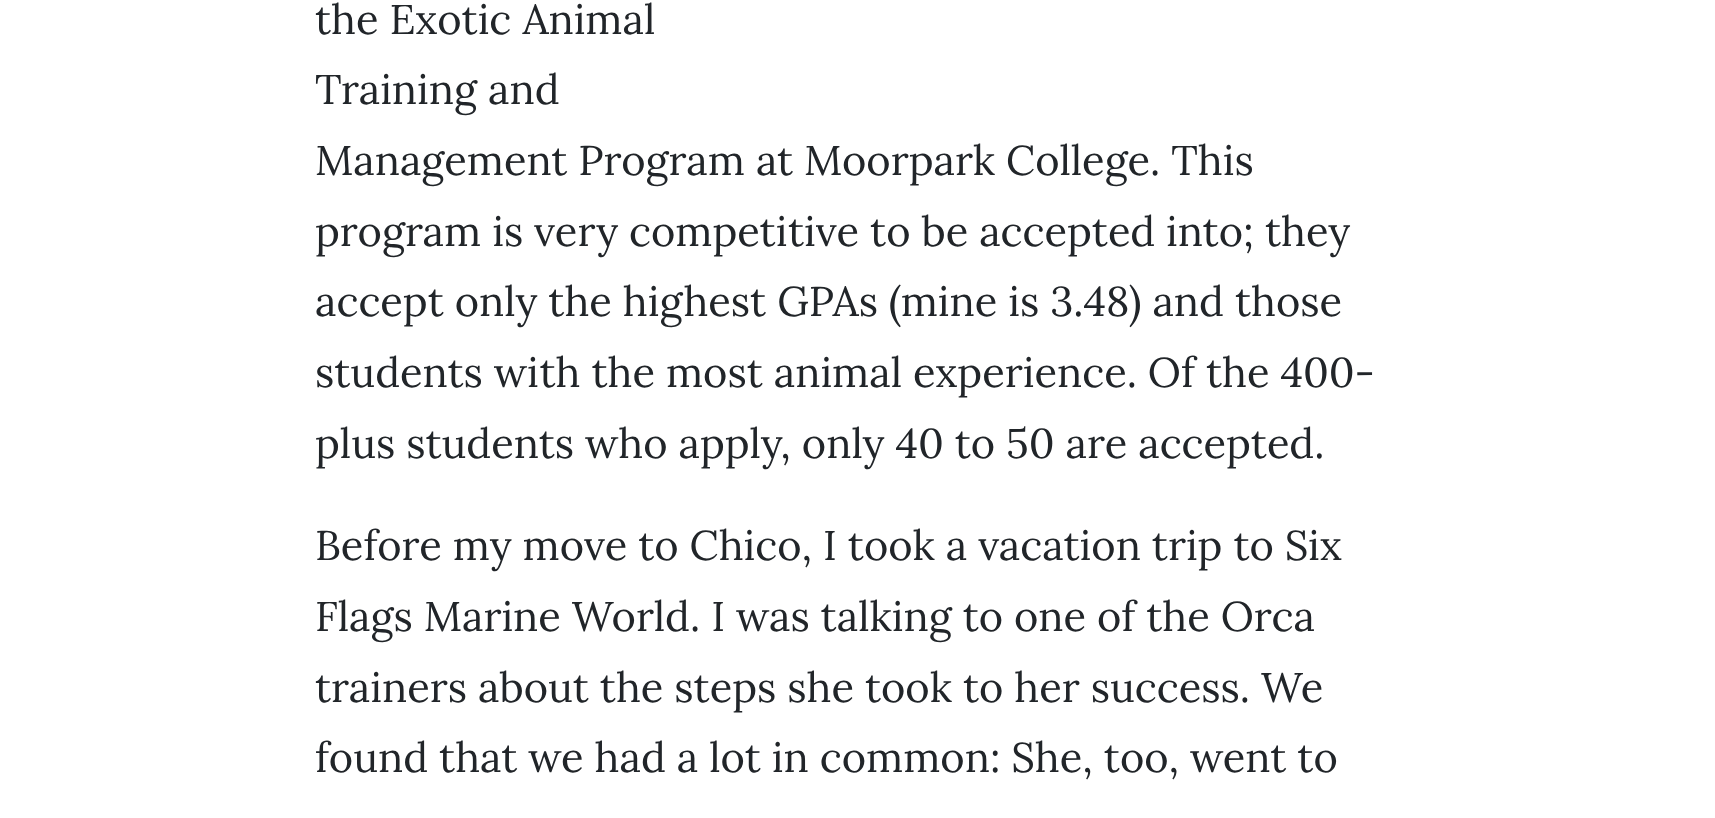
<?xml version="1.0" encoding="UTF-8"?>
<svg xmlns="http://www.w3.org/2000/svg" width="1715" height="818">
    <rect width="100%" height="100%" fill="#FFFFFF"/>
    <text font-family="Lora" font-size="41.6" fill="#212529">
        <tspan x="315" y="34">the Exotic Animal</tspan>
        <tspan x="315" y="104">Training and</tspan>
        <tspan x="315" y="175">Management Program at Moorpark College. This</tspan>
        <tspan x="315" y="246">program is very competitive to be accepted into; they</tspan>
        <tspan x="315" y="316">accept only the highest GPAs (mine is 3.48) and those</tspan>
        <tspan x="315" y="387">students with the most animal experience. Of the 400-</tspan>
        <tspan x="315" y="458">plus students who apply, only 40 to 50 are accepted.</tspan>
    </text>
    <text font-family="Lora" font-size="41.6" fill="#212529">
        <tspan x="315" y="560">Before my move to Chico, I took a vacation trip to Six</tspan>
        <tspan x="315" y="631">Flags Marine World. I was talking to one of the Orca</tspan>
        <tspan x="315" y="702">trainers about the steps she took to her success. We</tspan>
        <tspan x="315" y="772">found that we had a lot in common: She, too, went to</tspan>
    </text>
</svg>
